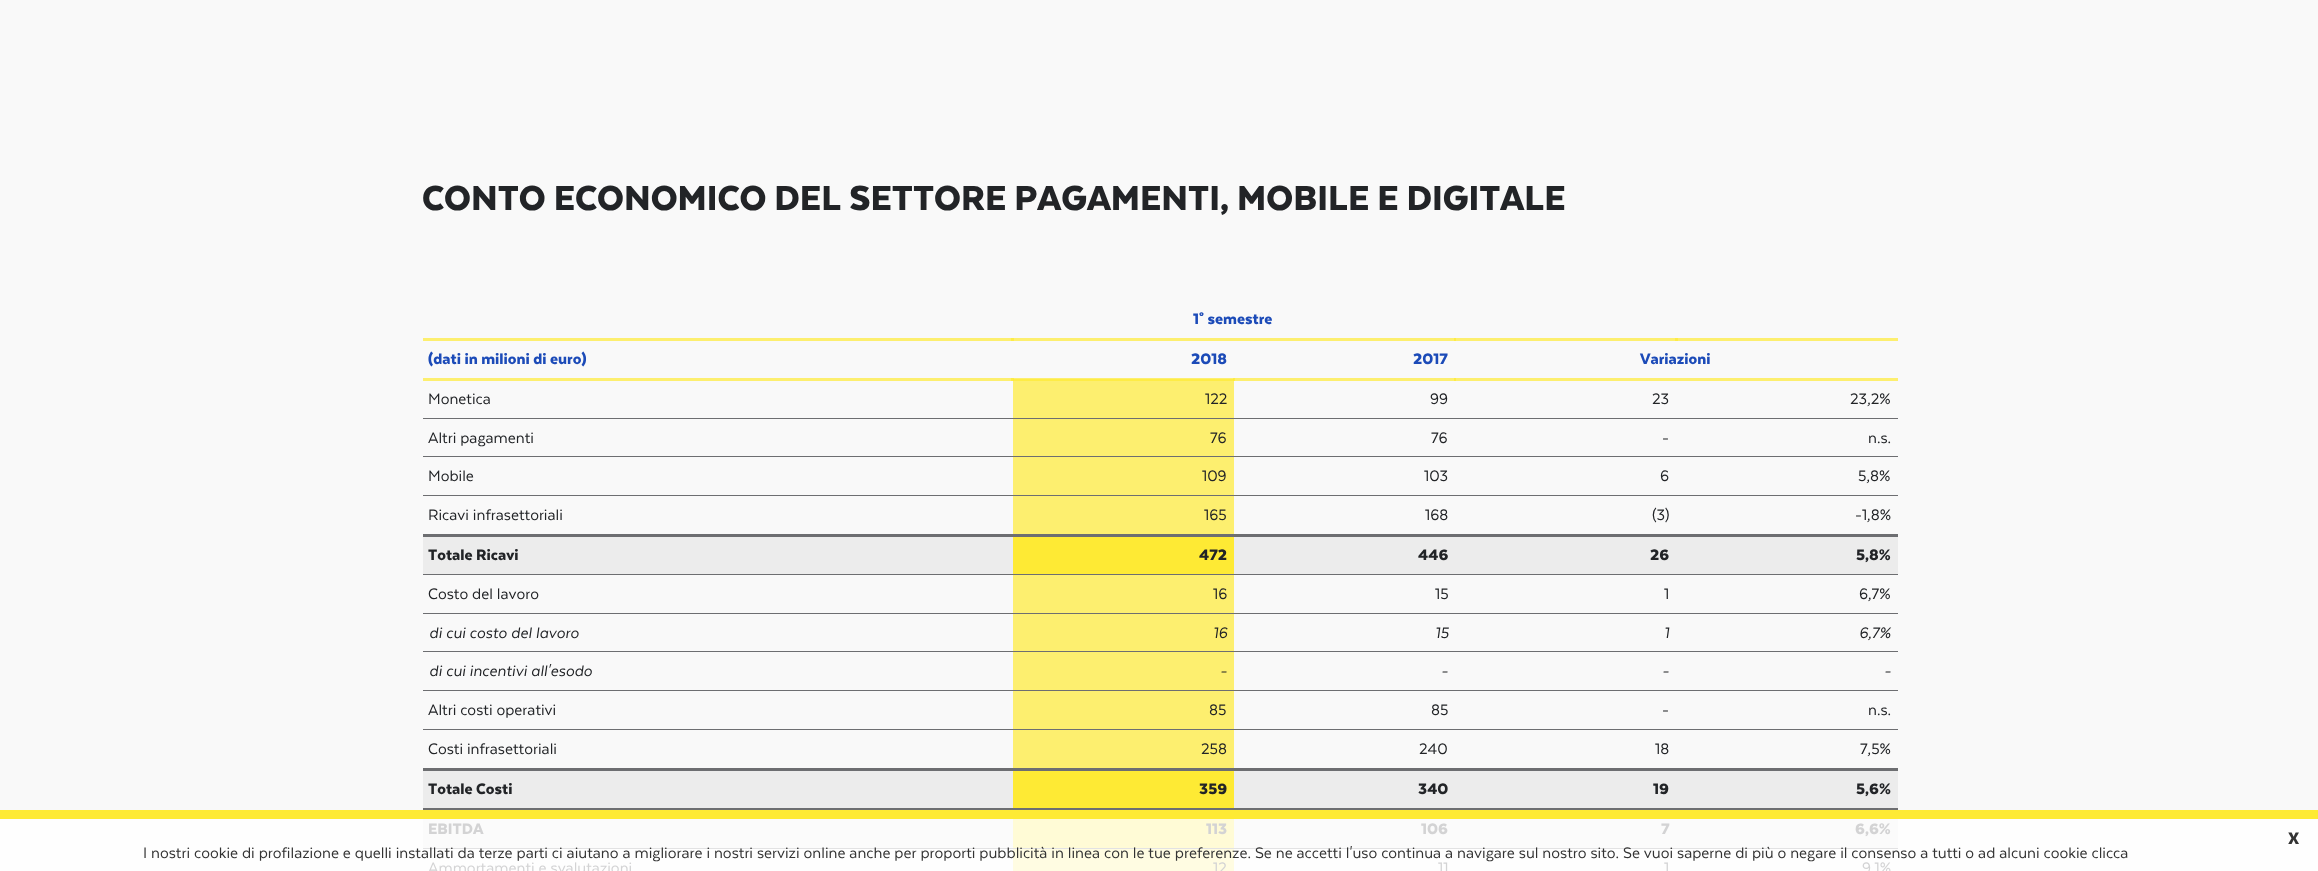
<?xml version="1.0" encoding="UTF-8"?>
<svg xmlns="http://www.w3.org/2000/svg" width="2318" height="871">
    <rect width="100%" height="100%" fill="#F9F9F9"/>
    <rect x="0" y="819" width="2318" height="52" fill="#FEFEFE"/>
    <rect x="423" y="338" width="1475" height="3" fill="#FDEF6F"/>
    <rect x="1011" y="338" width="3" height="3" fill="#FEEC46"/>
    <rect x="1454" y="338" width="2" height="3" fill="#FEEC46"/>
    <rect x="423" y="378" width="591" height="3" fill="#FDEF6F"/>
    <rect x="1011" y="378" width="224" height="1" fill="#FDEF6F"/>
    <rect x="1011" y="378" width="3" height="3" fill="#FEEC46"/>
    <rect x="1233" y="378" width="665" height="3" fill="#FDEF6F"/>
    <rect x="1233" y="378" width="2" height="3" fill="#FEEC46"/>
    <text x="422" y="210" font-family="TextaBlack" font-size="40" font-weight="900" fill="#222427">CONTO ECONOMICO DEL SETTORE PAGAMENTI, MOBILE E DIGITALE</text>
    <text x="1193" y="324" font-family="TextaBlack" font-size="17.5" font-weight="900" fill="#1C4BB8">1° semestre</text>
    <rect x="1675" y="338" width="3" height="3" fill="#FEEC46"/>
    <text x="428" y="364" font-family="TextaBlack" font-size="17.5" font-weight="900" fill="#1C4BB8">(dati in milioni di euro)</text>
    <text x="1191" y="364" font-family="TextaBlack" font-size="17.5" font-weight="900" fill="#1C4BB8">2018</text>
    <text x="1413" y="364" font-family="TextaBlack" font-size="17.5" font-weight="900" fill="#1C4BB8">2017</text>
    <rect x="1454" y="378" width="2" height="3" fill="#FEEC46"/>
    <text x="1640" y="364" font-family="TextaBlack" font-size="17.5" font-weight="900" fill="#1C4BB8">Variazioni</text>
    <text x="428" y="404" font-family="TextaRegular" font-size="17.5" fill="#222427">Monetica</text>
    <rect x="1013" y="381" width="221" height="37" fill="#FDEF6F"/>
    <rect x="1013" y="379" width="221" height="2" fill="#FEEC46"/>
    <rect x="1013" y="379" width="1" height="2" fill="#FEEB39"/>
    <rect x="1233" y="379" width="1" height="2" fill="#FEEB39"/>
    <text x="1205" y="404" font-family="TextaRegular" font-size="17.5" fill="#222427">122</text>
    <text x="1430" y="404" font-family="TextaRegular" font-size="17.5" fill="#222427">99</text>
    <text x="1652" y="404" font-family="TextaRegular" font-size="17.5" fill="#222427">23</text>
    <rect x="423" y="418" width="1475" height="1" fill="#6D6E71"/>
    <text x="1850" y="404" font-family="TextaRegular" font-size="17.5" fill="#222427">23,2%</text>
    <text x="428" y="443" font-family="TextaRegular" font-size="17.5" fill="#222427">Altri pagamenti</text>
    <rect x="1013" y="419" width="221" height="76" fill="#FDEF6F"/>
    <text x="1210" y="443" font-family="TextaRegular" font-size="17.5" fill="#222427">76</text>
    <text x="1431" y="443" font-family="TextaRegular" font-size="17.5" fill="#222427">76</text>
    <text x="1662" y="443" font-family="TextaRegular" font-size="17.5" fill="#222427">-</text>
    <rect x="423" y="456" width="1475" height="1" fill="#6D6E71"/>
    <text x="1868" y="443" font-family="TextaRegular" font-size="17.5" fill="#222427">n.s.</text>
    <text x="428" y="481" font-family="TextaRegular" font-size="17.5" fill="#222427">Mobile</text>
    <text x="1202" y="481" font-family="TextaRegular" font-size="17.5" fill="#222427">109</text>
    <text x="1424" y="481" font-family="TextaRegular" font-size="17.5" fill="#222427">103</text>
    <text x="1660" y="481" font-family="TextaRegular" font-size="17.5" fill="#222427">6</text>
    <rect x="423" y="495" width="1475" height="1" fill="#6D6E71"/>
    <text x="1858" y="481" font-family="TextaRegular" font-size="17.5" fill="#222427">5,8%</text>
    <text x="428" y="520" font-family="TextaRegular" font-size="17.5" fill="#222427">Ricavi infrasettoriali</text>
    <rect x="1013" y="496" width="221" height="38" fill="#FDEF6F"/>
    <text x="1204" y="520" font-family="TextaRegular" font-size="17.5" fill="#222427">165</text>
    <text x="1425" y="520" font-family="TextaRegular" font-size="17.5" fill="#222427">168</text>
    <text x="1652" y="520" font-family="TextaRegular" font-size="17.5" fill="#222427">(3)</text>
    <text x="1855" y="520" font-family="TextaRegular" font-size="17.5" fill="#222427">-1,8%</text>
    <rect x="423" y="537" width="590" height="37" fill="#ECECEC"/>
    <text x="428" y="560" font-family="TextaBlack" font-size="17.5" font-weight="900" fill="#222427">Totale Ricavi</text>
    <rect x="1013" y="537" width="221" height="37" fill="#FEEA34"/>
    <text x="1199" y="560" font-family="TextaBlack" font-size="17.5" font-weight="900" fill="#222427">472</text>
    <rect x="1234" y="537" width="664" height="37" fill="#ECECEC"/>
    <text x="1418" y="560" font-family="TextaBlack" font-size="17.5" font-weight="900" fill="#222427">446</text>
    <text x="1650" y="560" font-family="TextaBlack" font-size="17.5" font-weight="900" fill="#222427">26</text>
    <rect x="423" y="574" width="1475" height="1" fill="#6D6E71"/>
    <rect x="423" y="534" width="1475" height="3" fill="#6D6E71"/>
    <text x="1856" y="560" font-family="TextaBlack" font-size="17.5" font-weight="900" fill="#222427">5,8%</text>
    <text x="428" y="599" font-family="TextaRegular" font-size="17.5" fill="#222427">Costo del lavoro</text>
    <rect x="1013" y="575" width="221" height="38" fill="#FDEF6F"/>
    <text x="1213" y="599" font-family="TextaRegular" font-size="17.5" fill="#222427">16</text>
    <text x="1435" y="599" font-family="TextaRegular" font-size="17.5" fill="#222427">15</text>
    <text x="1664" y="599" font-family="TextaRegular" font-size="17.5" fill="#222427">1</text>
    <rect x="423" y="613" width="1475" height="1" fill="#6D6E71"/>
    <text x="1859" y="599" font-family="TextaRegular" font-size="17.5" fill="#222427">6,7%</text>
    <text x="429" y="638" font-family="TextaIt" font-size="17.5" font-style="italic" fill="#222427">di cui costo del lavoro</text>
    <rect x="1013" y="614" width="221" height="76" fill="#FDEF6F"/>
    <text x="1213" y="638" font-family="TextaIt" font-size="17.5" font-style="italic" fill="#222427">16</text>
    <text x="1435" y="638" font-family="TextaIt" font-size="17.5" font-style="italic" fill="#222427">15</text>
    <text x="1664" y="638" font-family="TextaIt" font-size="17.5" font-style="italic" fill="#222427">1</text>
    <rect x="423" y="651" width="1475" height="1" fill="#6D6E71"/>
    <text x="1859" y="638" font-family="TextaIt" font-size="17.5" font-style="italic" fill="#222427">6,7%</text>
    <text x="429" y="676" font-family="TextaIt" font-size="17.5" font-style="italic" fill="#222427">di cui incentivi all'esodo</text>
    <text x="1220" y="676" font-family="TextaIt" font-size="17.5" font-style="italic" fill="#222427">-</text>
    <text x="1441" y="676" font-family="TextaIt" font-size="17.5" font-style="italic" fill="#222427">-</text>
    <text x="1662" y="676" font-family="TextaIt" font-size="17.5" font-style="italic" fill="#222427">-</text>
    <rect x="423" y="690" width="1475" height="1" fill="#6D6E71"/>
    <text x="1884" y="676" font-family="TextaIt" font-size="17.5" font-style="italic" fill="#222427">-</text>
    <text x="428" y="715" font-family="TextaRegular" font-size="17.5" fill="#222427">Altri costi operativi</text>
    <rect x="1013" y="691" width="221" height="38" fill="#FDEF6F"/>
    <text x="1209" y="715" font-family="TextaRegular" font-size="17.5" fill="#222427">85</text>
    <text x="1431" y="715" font-family="TextaRegular" font-size="17.5" fill="#222427">85</text>
    <text x="1662" y="715" font-family="TextaRegular" font-size="17.5" fill="#222427">-</text>
    <rect x="423" y="729" width="1475" height="1" fill="#6D6E71"/>
    <text x="1868" y="715" font-family="TextaRegular" font-size="17.5" fill="#222427">n.s.</text>
    <text x="428" y="754" font-family="TextaRegular" font-size="17.5" fill="#222427">Costi infrasettoriali</text>
    <rect x="1013" y="730" width="221" height="38" fill="#FDEF6F"/>
    <text x="1201" y="754" font-family="TextaRegular" font-size="17.5" fill="#222427">258</text>
    <text x="1419" y="754" font-family="TextaRegular" font-size="17.5" fill="#222427">240</text>
    <text x="1655" y="754" font-family="TextaRegular" font-size="17.5" fill="#222427">18</text>
    <text x="1860" y="754" font-family="TextaRegular" font-size="17.5" fill="#222427">7,5%</text>
    <rect x="423" y="771" width="590" height="37" fill="#ECECEC"/>
    <text x="428" y="794" font-family="TextaBlack" font-size="17.5" font-weight="900" fill="#222427">Totale Costi</text>
    <rect x="1013" y="771" width="221" height="37" fill="#FEEA34"/>
    <text x="1199" y="794" font-family="TextaBlack" font-size="17.5" font-weight="900" fill="#222427">359</text>
    <rect x="1234" y="771" width="664" height="37" fill="#ECECEC"/>
    <text x="1418" y="794" font-family="TextaBlack" font-size="17.5" font-weight="900" fill="#222427">340</text>
    <text x="1653" y="794" font-family="TextaBlack" font-size="17.5" font-weight="900" fill="#222427">19</text>
    <rect x="423" y="768" width="1475" height="3" fill="#6D6E71"/>
    <text x="1856" y="794" font-family="TextaBlack" font-size="17.5" font-weight="900" fill="#222427">5,6%</text>
    <rect x="423" y="819" width="590" height="29" fill="#FBFBFB"/>
    <text x="428" y="834" font-family="TextaBlack" font-size="17.5" font-weight="900" fill="#D3D3D4">EBITDA</text>
    <rect x="1013" y="819" width="221" height="29" fill="#FFFBD6"/>
    <text x="1206" y="834" font-family="TextaBlack" font-size="17.5" font-weight="900" fill="#D3D3D4">113</text>
    <rect x="1234" y="819" width="664" height="29" fill="#FBFBFB"/>
    <text x="1421" y="834" font-family="TextaBlack" font-size="17.5" font-weight="900" fill="#D3D3D4">106</text>
    <text x="1661" y="834" font-family="TextaBlack" font-size="17.5" font-weight="900" fill="#D3D3D4">7</text>
    <rect x="423" y="848" width="1475" height="1" fill="#E2E2E3"/>
    <rect x="423" y="808" width="1475" height="2" fill="#6D6E71"/>
    <text x="1855" y="834" font-family="TextaBlack" font-size="17.5" font-weight="900" fill="#D3D3D4">6,6%</text>
    <text x="428" y="873" font-family="TextaRegular" font-size="17.5" fill="#D3D3D4">Ammortamenti e svalutazioni</text>
    <rect x="1013" y="849" width="221" height="22" fill="#FFFCE2"/>
    <text x="1213" y="873" font-family="TextaRegular" font-size="17.5" fill="#D3D3D4">12</text>
    <text x="1438" y="873" font-family="TextaRegular" font-size="17.5" fill="#D3D3D4">11</text>
    <text x="1664" y="873" font-family="TextaRegular" font-size="17.5" fill="#D3D3D4">1</text>
    <text x="1862" y="873" font-family="TextaRegular" font-size="17.5" fill="#D3D3D4">9,1%</text>
    <rect x="0" y="810" width="2318" height="9" fill="#FEEA34"/>
    <text x="2288" y="844" font-family="TextaBlack" font-size="19" font-weight="900" fill="#333333">X</text>
    <text x="143" y="858" font-family="TextaRegular" font-size="17.5" fill="#333333">I nostri cookie di profilazione e quelli installati da terze parti ci aiutano a migliorare i nostri servizi online anche per proporti pubblicità in linea con le tue preferenze. Se ne accetti l'uso continua a navigare sul nostro sito. Se vuoi saperne di più o negare il consenso a tutti o ad alcuni cookie clicca</text>
</svg>
